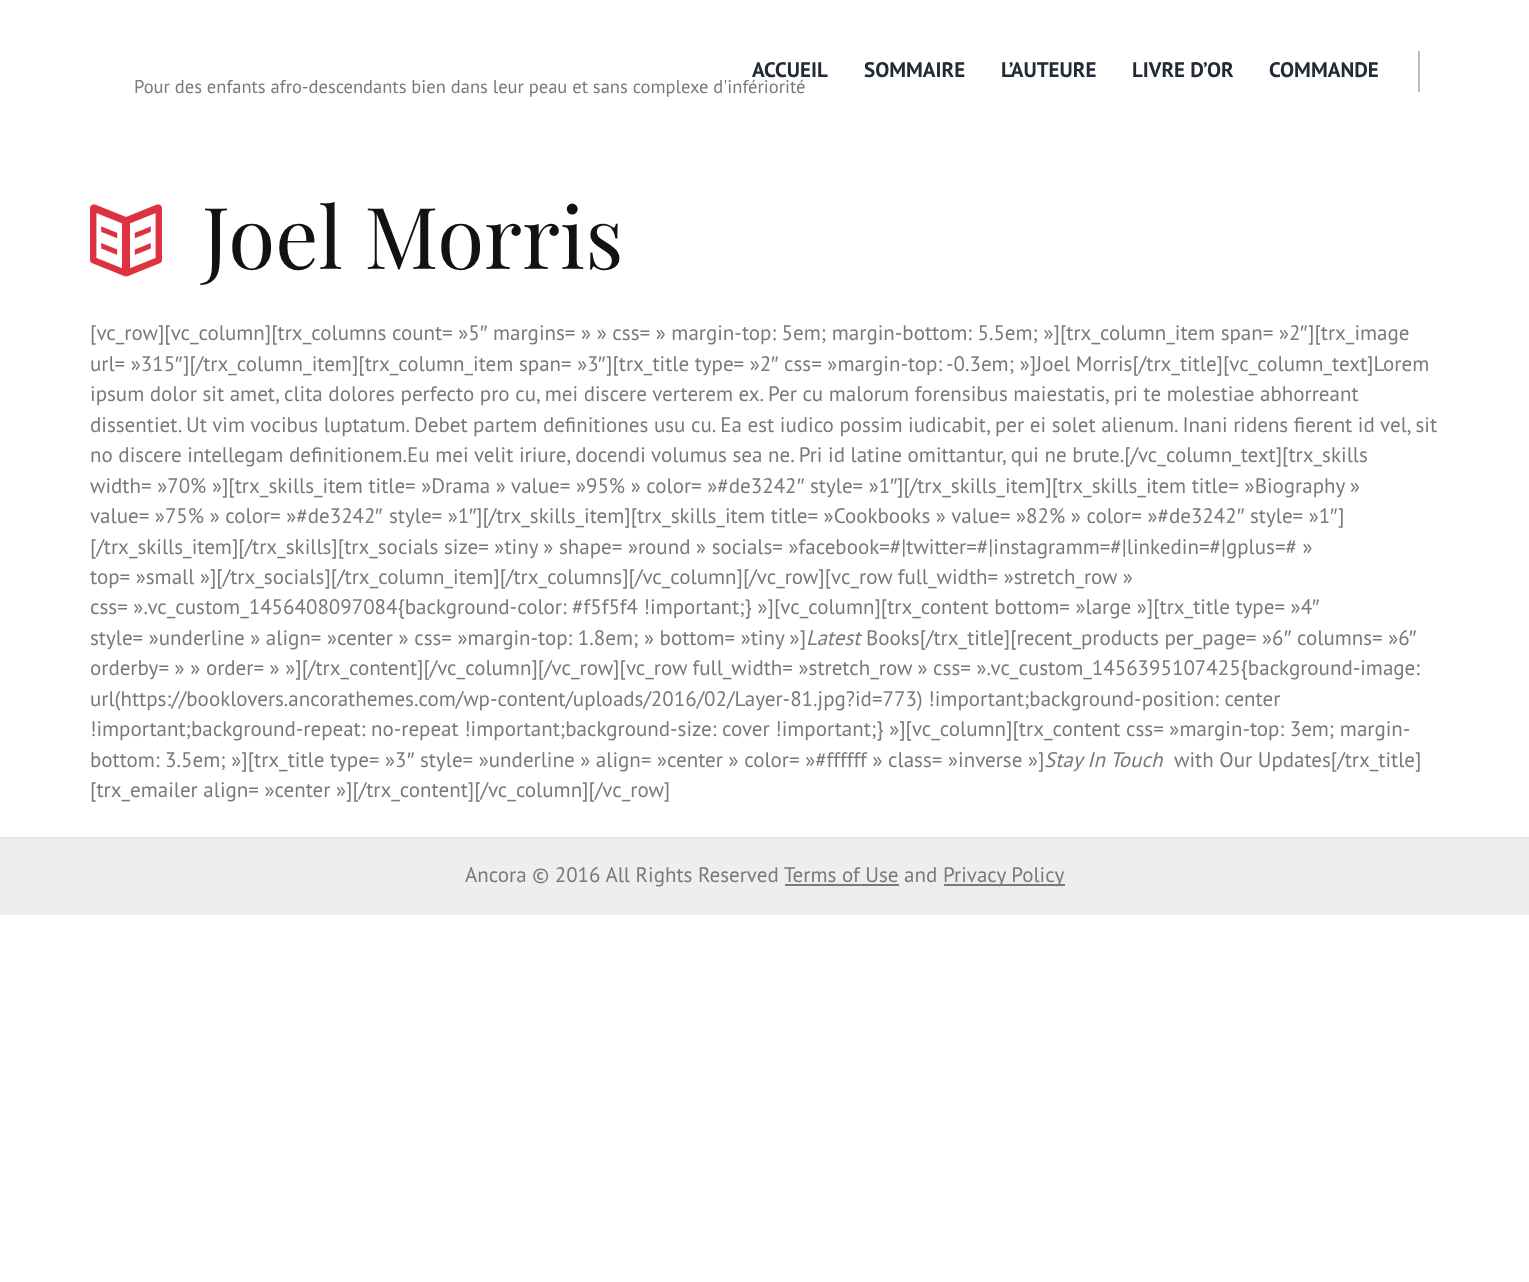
<?xml version="1.0" encoding="UTF-8"?>
<svg xmlns="http://www.w3.org/2000/svg" width="1529" height="1282">
    <rect width="100%" height="100%" fill="#FFFFFF"/>
    <rect x="1418" y="51" width="2" height="41" fill="#BCBCBC"/>
    <text x="752" y="77" font-family="PT Sans" font-size="21" font-weight="700" fill="#232A34">ACCUEIL</text>
    <text x="864" y="77" font-family="PT Sans" font-size="21" font-weight="700" fill="#232A34">SOMMAIRE</text>
    <text x="1001" y="77" font-family="PT Sans" font-size="21" font-weight="700" fill="#232A34">L’AUTEURE</text>
    <text x="1132" y="77" font-family="PT Sans" font-size="21" font-weight="700" fill="#232A34">LIVRE D’OR</text>
    <text x="1269" y="77" font-family="PT Sans" font-size="21" font-weight="700" fill="#232A34">COMMANDE</text>
    <text x="134" y="93" font-family="PT Sans" font-size="18.5" fill="#797979">Pour des enfants afro-descendants bien dans leur peau et sans complexe d'infériorité</text>
    <image x="90" y="204" width="72" height="73" href="img_01.png"/>
    <text x="202" y="269" font-family="Playfair Display" font-size="85.5" fill="#121212">Joel Morris</text>
    <text x="90" y="340" font-family="PT Sans" font-size="21" fill="#797979">[vc_row][vc_column][trx_columns count= »5</text>
    <text x="480" y="340" font-family="Liberation Sans" font-size="21" fill="#797979">″</text>
    <text x="493" y="340" font-family="PT Sans" font-size="21" fill="#797979">margins= » » css= » margin-top: 5em; margin-bottom: 5.5em; »][trx_column_item span= »2</text>
    <text x="1300" y="340" font-family="Liberation Sans" font-size="21" fill="#797979">″</text>
    <text x="1308" y="340" font-family="PT Sans" font-size="21" fill="#797979">][trx_image</text>
    <text x="90" y="371" font-family="PT Sans" font-size="21" fill="#797979">url= »315</text>
    <text x="175" y="371" font-family="Liberation Sans" font-size="21" fill="#797979">″</text>
    <text x="183" y="371" font-family="PT Sans" font-size="21" fill="#797979">][/trx_column_item][trx_column_item span= »3</text>
    <text x="598" y="371" font-family="Liberation Sans" font-size="21" fill="#797979">″</text>
    <text x="606" y="371" font-family="PT Sans" font-size="21" fill="#797979">][trx_title type= »2</text>
    <text x="771" y="371" font-family="Liberation Sans" font-size="21" fill="#797979">″</text>
    <text x="784" y="371" font-family="PT Sans" font-size="21" fill="#797979">css= »margin-top: -0.3em; »]Joel Morris[/trx_title][vc_column_text]Lorem</text>
    <text font-family="PT Sans" font-size="21" fill="#797979">
        <tspan x="90" y="401">ipsum dolor sit amet, clita dolores perfecto pro cu, mei discere verterem ex. Per cu malorum forensibus maiestatis, pri te molestiae abhorreant</tspan>
        <tspan x="90" y="432">dissentiet. Ut vim vocibus luptatum. Debet partem definitiones usu cu. Ea est iudico possim iudicabit, per ei solet alienum. Inani ridens fierent id vel, sit</tspan>
        <tspan x="90" y="462">no discere intellegam definitionem.Eu mei velit iriure, docendi volumus sea ne. Pri id latine omittantur, qui ne brute.[/vc_column_text][trx_skills</tspan>
        <tspan x="90" y="493">width= »70% »][trx_skills_item title= »Drama » value= »95% » color= »#de3242</tspan>
    </text>
    <text x="797" y="493" font-family="Liberation Sans" font-size="21" fill="#797979">″</text>
    <text x="810" y="493" font-family="PT Sans" font-size="21" fill="#797979">style= »1</text>
    <text x="890" y="493" font-family="Liberation Sans" font-size="21" fill="#797979">″</text>
    <text x="897" y="493" font-family="PT Sans" font-size="21" fill="#797979">][/trx_skills_item][trx_skills_item title= »Biography »</text>
    <text x="90" y="523" font-family="PT Sans" font-size="21" fill="#797979">value= »75% » color= »#de3242</text>
    <text x="375" y="523" font-family="Liberation Sans" font-size="21" fill="#797979">″</text>
    <text x="389" y="523" font-family="PT Sans" font-size="21" fill="#797979">style= »1</text>
    <text x="469" y="523" font-family="Liberation Sans" font-size="21" fill="#797979">″</text>
    <text x="476" y="523" font-family="PT Sans" font-size="21" fill="#797979">][/trx_skills_item][trx_skills_item title= »Cookbooks » value= »82% » color= »#de3242</text>
    <text x="1237" y="523" font-family="Liberation Sans" font-size="21" fill="#797979">″</text>
    <text x="1250" y="523" font-family="PT Sans" font-size="21" fill="#797979">style= »1</text>
    <text x="1330" y="523" font-family="Liberation Sans" font-size="21" fill="#797979">″</text>
    <text x="1338" y="523" font-family="PT Sans" font-size="21" fill="#797979">]</text>
    <text font-family="PT Sans" font-size="21" fill="#797979">
        <tspan x="90" y="554">[/trx_skills_item][/trx_skills][trx_socials size= »tiny » shape= »round » socials= »facebook=#|twitter=#|instagramm=#|linkedin=#|gplus=# »</tspan>
        <tspan x="90" y="584">top= »small »][/trx_socials][/trx_column_item][/trx_columns][/vc_column][/vc_row][vc_row full_width= »stretch_row »</tspan>
        <tspan x="90" y="614">css= ».vc_custom_1456408097084{background-color: #f5f5f4 !important;} »][vc_column][trx_content bottom= »large »][trx_title type= »4</tspan>
    </text>
    <text x="1312" y="614" font-family="Liberation Sans" font-size="21" fill="#797979">″</text>
    <text x="90" y="645" font-family="PT Sans" font-size="21" fill="#797979">style= »underline » align= »center » css= »margin-top: 1.8em; » bottom= »tiny »]</text>
    <text x="806" y="645" font-family="PT Sans" font-size="21" font-style="italic" fill="#797979">Latest</text>
    <text x="866" y="645" font-family="PT Sans" font-size="21" fill="#797979">Books[/trx_title][recent_products per_page= »6</text>
    <text x="1284" y="645" font-family="Liberation Sans" font-size="21" fill="#797979">″</text>
    <text x="1297" y="645" font-family="PT Sans" font-size="21" fill="#797979">columns= »6</text>
    <text x="1409" y="645" font-family="Liberation Sans" font-size="21" fill="#797979">″</text>
    <text font-family="PT Sans" font-size="21" fill="#797979">
        <tspan x="90" y="675">orderby= » » order= » »][/trx_content][/vc_column][/vc_row][vc_row full_width= »stretch_row » css= ».vc_custom_1456395107425{background-image:</tspan>
        <tspan x="90" y="706">url(https://booklovers.ancorathemes.com/wp-content/uploads/2016/02/Layer-81.jpg?id=773) !important;background-position: center</tspan>
        <tspan x="90" y="736">!important;background-repeat: no-repeat !important;background-size: cover !important;} »][vc_column][trx_content css= »margin-top: 3em; margin-</tspan>
        <tspan x="90" y="767">bottom: 3.5em; »][trx_title type= »3</tspan>
    </text>
    <text x="407" y="767" font-family="Liberation Sans" font-size="21" fill="#797979">″</text>
    <text x="420" y="767" font-family="PT Sans" font-size="21" fill="#797979">style= »underline » align= »center » color= »#ffffff » class= »inverse »]</text>
    <text x="1044" y="767" font-family="PT Sans" font-size="21" font-style="italic" fill="#797979">Stay In Touch</text>
    <text x="1174" y="767" font-family="PT Sans" font-size="21" fill="#797979">with Our Updates[/trx_title]</text>
    <text x="90" y="797" font-family="PT Sans" font-size="21" fill="#797979">[trx_emailer align= »center »][/trx_content][/vc_column][/vc_row]</text>
    <rect x="0" y="839" width="1529" height="76" fill="#EEEEEE"/>
    <rect x="0" y="837" width="1529" height="2" fill="#E4E7E8"/>
    <text x="465" y="882" font-family="PT Sans" font-size="21" fill="#797979">Ancora © 2016 All Rights Reserved Terms of Use and</text>
    <rect x="944" y="884" width="121" height="2" fill="#797979"/>
    <text x="943" y="882" font-family="PT Sans" font-size="21" fill="#797979">Privacy Policy</text>
    <rect x="785" y="884" width="114" height="2" fill="#797979"/>
</svg>
